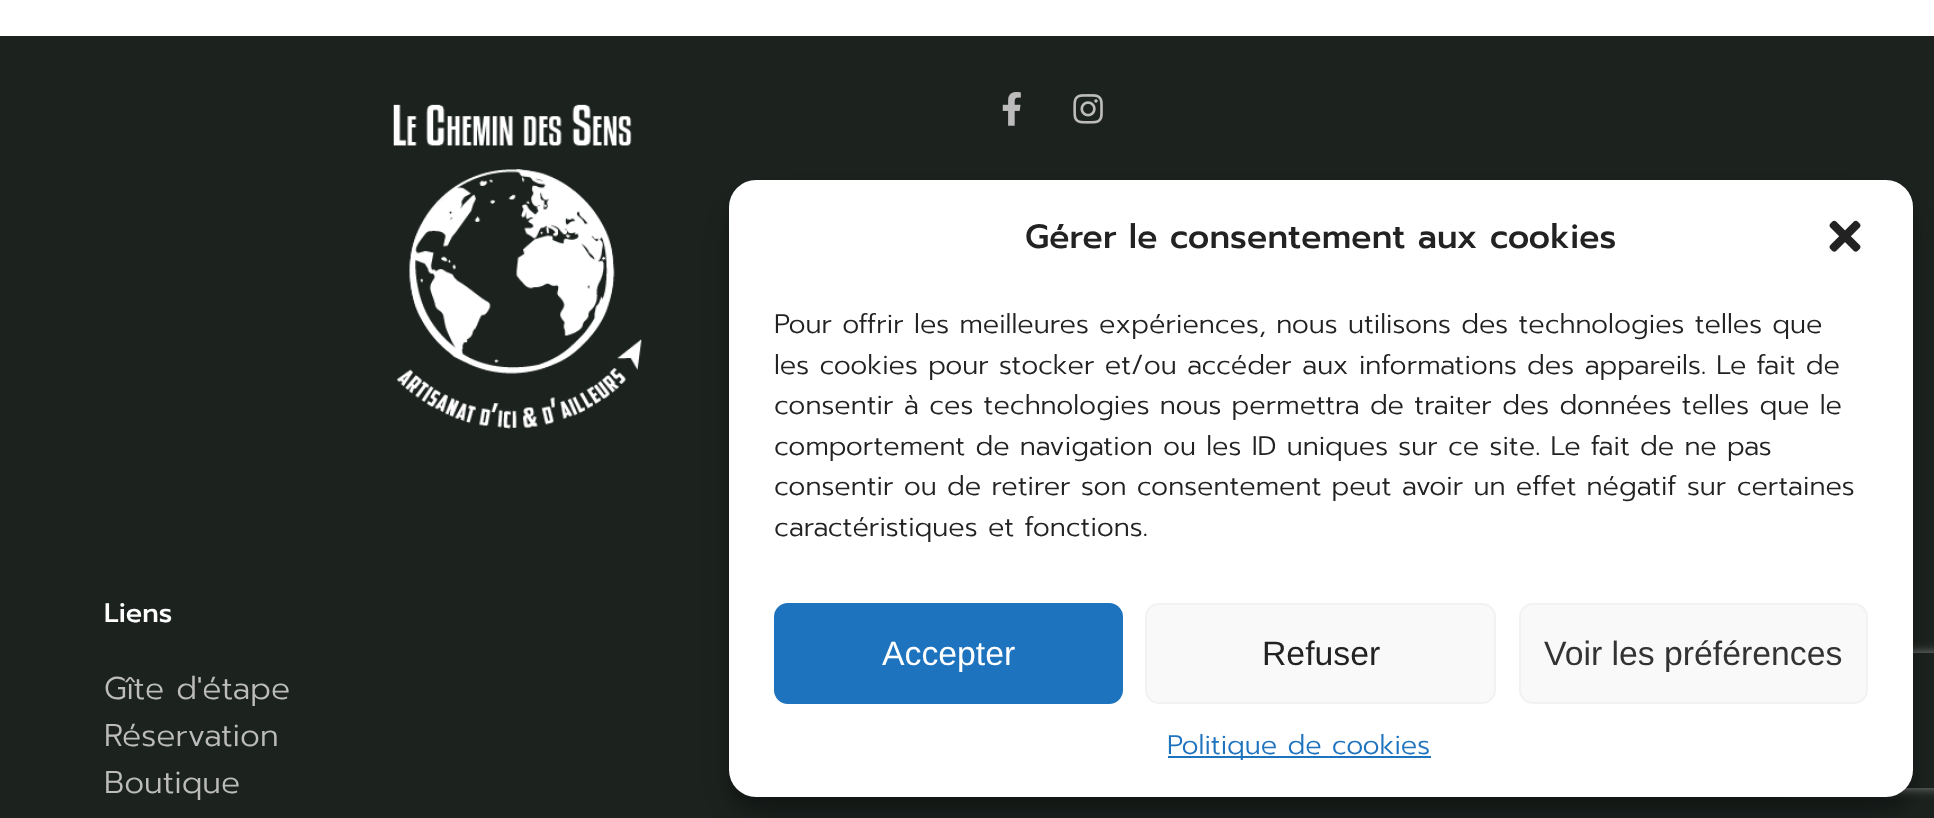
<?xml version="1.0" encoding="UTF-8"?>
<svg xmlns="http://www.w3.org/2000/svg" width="1934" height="818">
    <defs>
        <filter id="blur1" x="-50%" y="-200%" width="200%" height="500%"><feGaussianBlur stdDeviation="7"/></filter>
        <filter id="blur2" x="-50%" y="-200%" width="200%" height="500%"><feGaussianBlur stdDeviation="22.5"/></filter>
        <clipPath id="clip1"><path d="M 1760 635 H 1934 V 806 H 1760 Z M 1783 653 H 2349 C 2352 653 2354 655 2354 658 V 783 C 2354 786 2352 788 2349 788 H 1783 C 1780 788 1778 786 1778 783 V 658 C 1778 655 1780 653 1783 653 Z" clip-rule="evenodd"/></clipPath>
        <filter id="blur3" x="-50%" y="-200%" width="200%" height="500%"><feGaussianBlur stdDeviation="5.5"/></filter>
    </defs>
    <rect width="100%" height="100%" fill="#FFFFFF"/>
    <rect x="0" y="36" width="1934" height="782" fill="#1C231F"/>
    <image x="393" y="104" width="249" height="325" href="img_01.png"/>
    <image x="1002" y="92" width="19" height="34" href="img_02.png"/>
    <image x="1073" y="94" width="30" height="30" href="img_03.png"/>
    <text x="104" y="622" font-family="Prompt" font-size="27" font-weight="500" fill="#FFFFFF">Liens</text>
    <text font-family="Prompt" font-size="31.5" font-weight="300" fill="#BCBCBC">
        <tspan x="104" y="699">Gîte d'étape</tspan>
        <tspan x="104" y="746">Réservation</tspan>
        <tspan x="104" y="793">Boutique</tspan>
    </text>
    <rect x="729" y="194" width="1184" height="616" rx="27" fill="#000000" fill-opacity="0.23" filter="url(#blur1)"/>
    <rect x="729" y="203" width="1184" height="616" rx="27" fill="#000000" fill-opacity="0.19" filter="url(#blur2)"/>
    <g clip-path="url(#clip1)">
        <rect x="1778" y="653" width="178" height="135" rx="5" fill="#808080" filter="url(#blur3)"/>
    </g>
    <rect x="729" y="180" width="1184" height="617" rx="27" fill="#FFFFFF"/>
    <text x="1025" y="248" font-family="Prompt" font-size="33.75" font-weight="500" fill="#222222">Gérer le consentement aux cookies</text>
    <image x="1829" y="220" width="32" height="32" href="img_04.png"/>
    <text font-family="Prompt" font-size="27" font-weight="300" fill="#222222">
        <tspan x="774" y="333">Pour offrir les meilleures expériences, nous utilisons des technologies telles que</tspan>
        <tspan x="774" y="374">les cookies pour stocker et/ou accéder aux informations des appareils. Le fait de</tspan>
        <tspan x="774" y="414">consentir à ces technologies nous permettra de traiter des données telles que le</tspan>
        <tspan x="774" y="455">comportement de navigation ou les ID uniques sur ce site. Le fait de ne pas</tspan>
        <tspan x="774" y="495">consentir ou de retirer son consentement peut avoir un effet négatif sur certaines</tspan>
        <tspan x="774" y="536">caractéristiques et fonctions.</tspan>
    </text>
    <rect x="775" y="604" width="347" height="99" rx="13" fill="#1E73BE" stroke="#1E73BE" stroke-width="2"/>
    <text x="882" y="665" font-family="Liberation Sans" font-size="33.75" fill="#FFFFFF">Accepter</text>
    <rect x="1146" y="604" width="349" height="99" rx="13" fill="#F9F9F9" stroke="#F2F2F2" stroke-width="2"/>
    <text x="1262" y="665" font-family="Liberation Sans" font-size="33.75" fill="#222222">Refuser</text>
    <rect x="1520" y="604" width="347" height="99" rx="13" fill="#F9F9F9" stroke="#F2F2F2" stroke-width="2"/>
    <text x="1544" y="665" font-family="Liberation Sans" font-size="33.75" fill="#333333">Voir les préférences</text>
    <rect x="1168" y="756" width="263" height="2" fill="#1E73BE"/>
    <text x="1167" y="754" font-family="Prompt" font-size="27" font-weight="300" fill="#1E73BE">Politique de cookies</text>
</svg>
